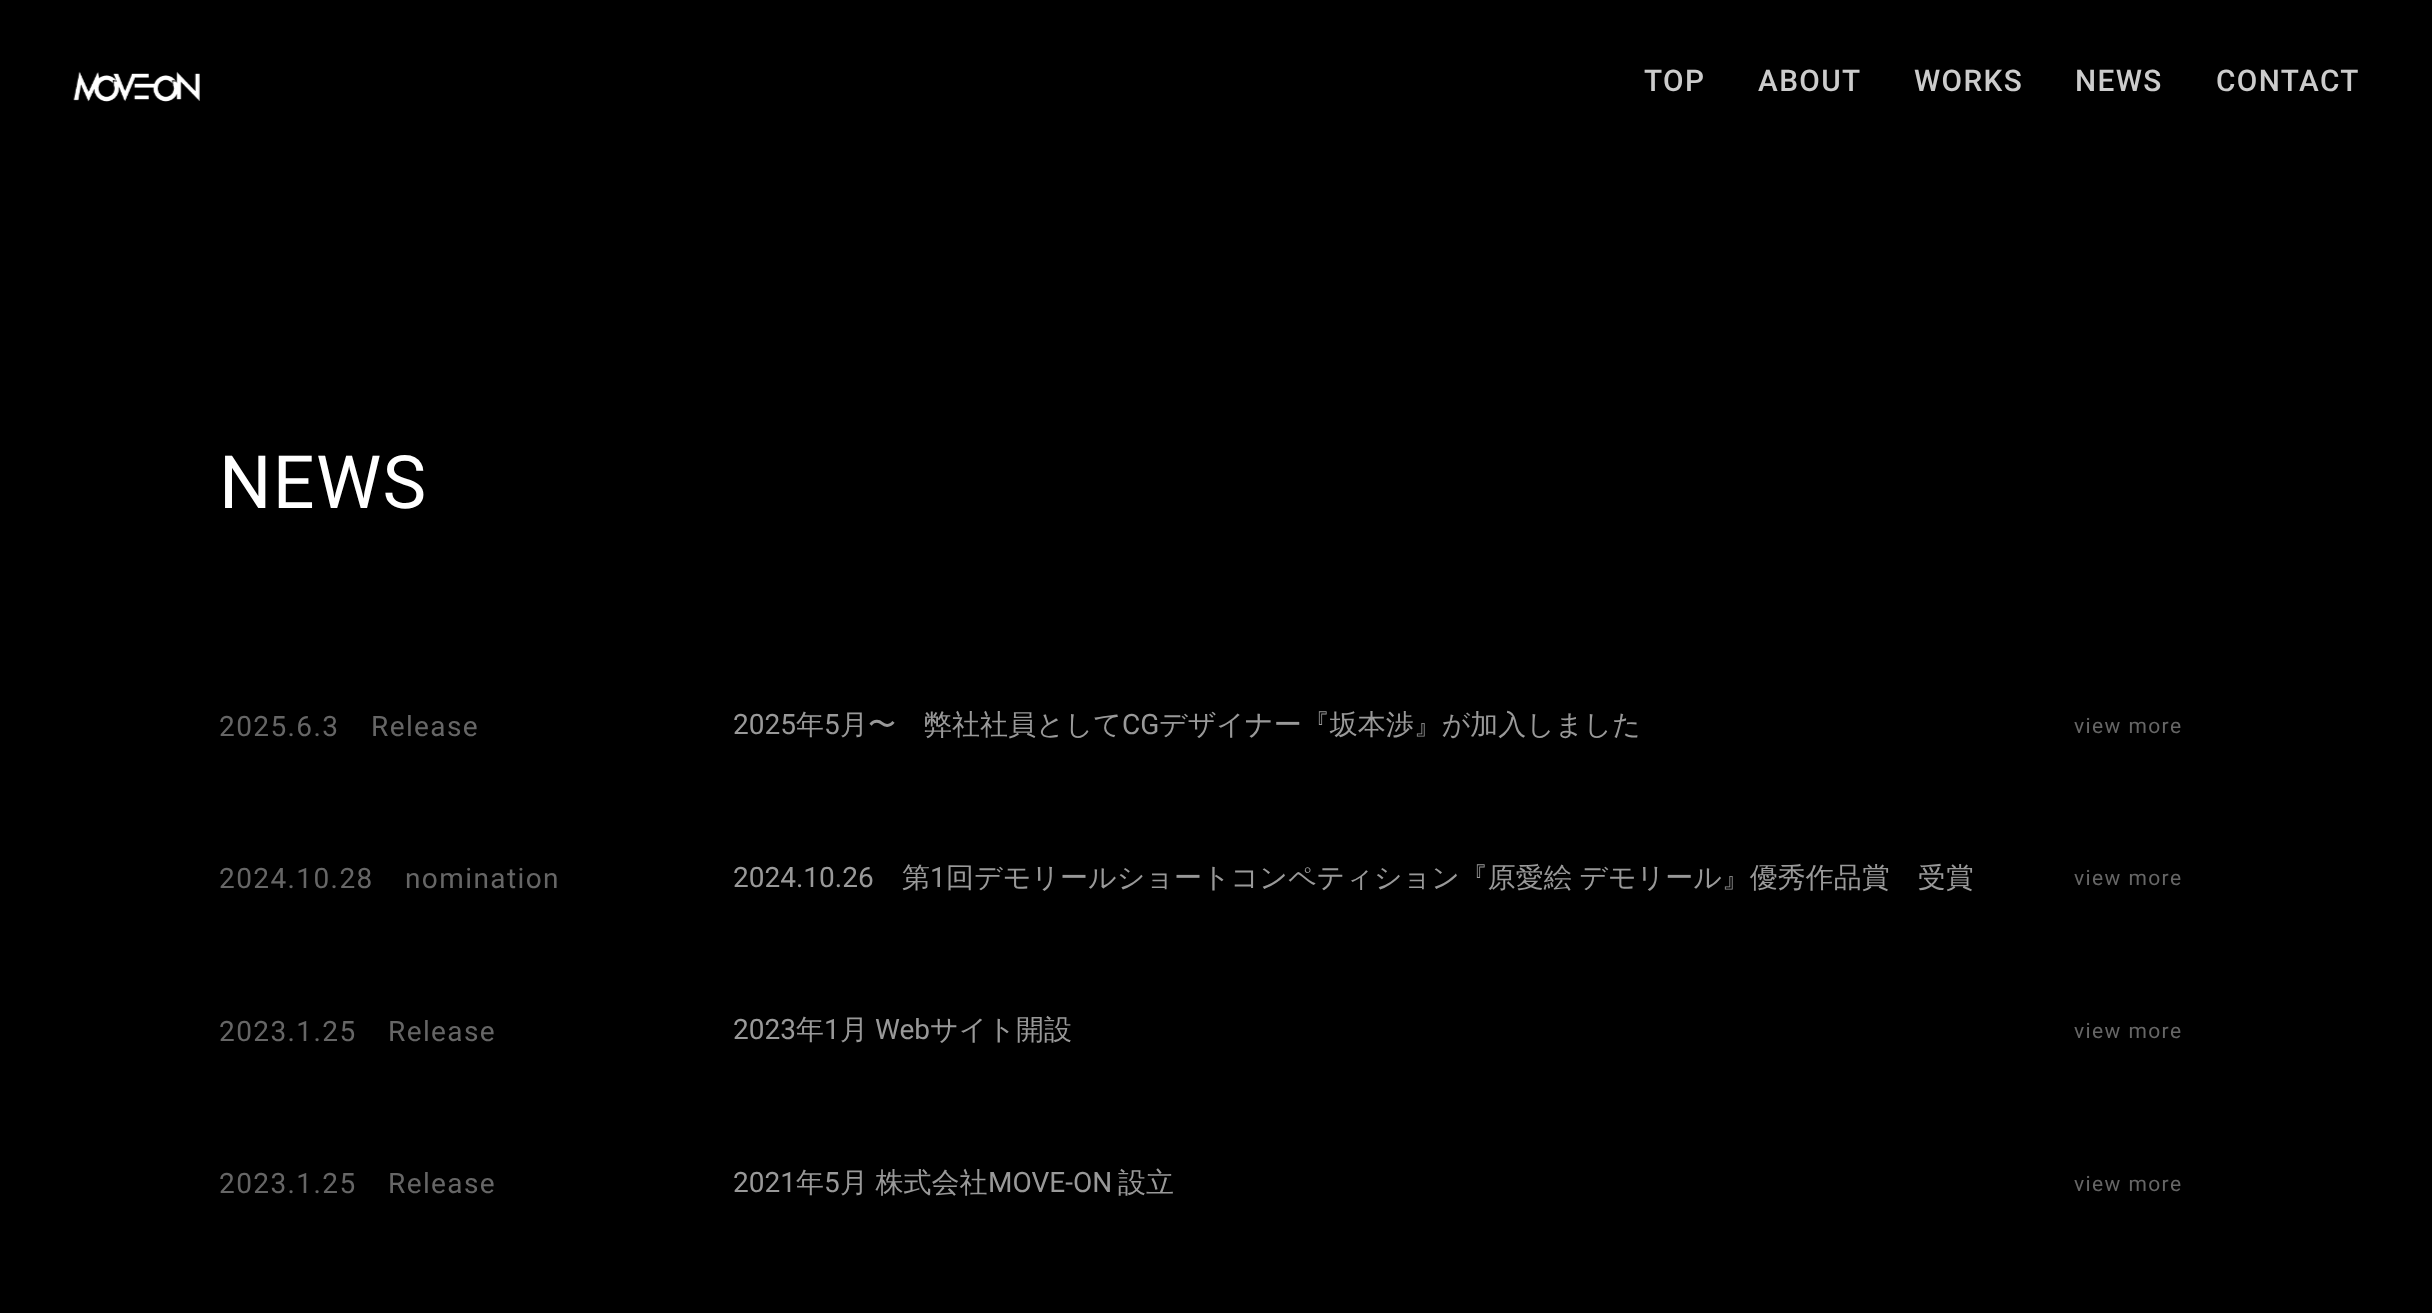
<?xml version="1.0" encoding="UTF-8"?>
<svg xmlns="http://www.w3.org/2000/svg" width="2432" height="1313">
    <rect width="100%" height="100%" fill="#000000"/>
    <image x="73" y="71" width="127" height="31" href="img_01.png"/>
    <text x="1644" y="91" font-family="Roboto" font-size="29.75" font-weight="500" letter-spacing="1.4" fill="#CCCCCC">TOP</text>
    <text x="1758" y="91" font-family="Roboto" font-size="29.75" font-weight="500" letter-spacing="1.4" fill="#CCCCCC">ABOUT</text>
    <text x="1914" y="91" font-family="Roboto" font-size="29.75" font-weight="500" letter-spacing="1.4" fill="#CCCCCC">WORKS</text>
    <text x="2075" y="91" font-family="Roboto" font-size="29.75" font-weight="500" letter-spacing="1.4" fill="#CCCCCC">NEWS</text>
    <text x="2216" y="91" font-family="Roboto" font-size="29.75" font-weight="500" letter-spacing="1.4" fill="#CCCCCC">CONTACT</text>
    <text x="219" y="508" font-family="Roboto" font-size="73.5" letter-spacing="1.4" fill="#FFFFFF">NEWS</text>
    <text x="219" y="736" font-family="Roboto" font-size="28" letter-spacing="1.4" fill="#666666">2025.6.3</text>
    <text x="371" y="736" font-family="Roboto" font-size="28" letter-spacing="1.4" fill="#666666">Release</text>
    <text x="733" y="734" font-family="Roboto" font-size="28" fill="#999999">2025</text>
    <text x="796" y="734" font-family="WenQuanYi Zen Hei" font-size="28" font-weight="500" fill="#999999">年</text>
    <text x="824" y="734" font-family="Roboto" font-size="28" fill="#999999">5</text>
    <text x="840" y="734" font-family="WenQuanYi Zen Hei" font-size="28" font-weight="500" fill="#999999">月〜　弊社社員として</text>
    <text x="1122" y="734" font-family="Roboto" font-size="28" fill="#999999">CG</text>
    <text x="1159" y="734" font-family="WenQuanYi Zen Hei" font-size="28" font-weight="500" fill="#999999">デザイナー『坂本渉』が加入しました</text>
    <text x="2074" y="733" font-family="Roboto" font-size="21" letter-spacing="1.4" fill="#666666">view more</text>
    <text x="219" y="888" font-family="Roboto" font-size="28" letter-spacing="1.4" fill="#666666">2024.10.28</text>
    <text x="405" y="888" font-family="Roboto" font-size="28" letter-spacing="1.4" fill="#666666">nomination</text>
    <text x="733" y="887" font-family="Roboto" font-size="28" fill="#999999">2024.10.26</text>
    <text x="902" y="887" font-family="WenQuanYi Zen Hei" font-size="28" font-weight="500" fill="#999999">第</text>
    <text x="930" y="887" font-family="Roboto" font-size="28" fill="#999999">1</text>
    <text x="946" y="887" word-spacing="-1" font-family="WenQuanYi Zen Hei" font-size="28" font-weight="500" fill="#999999">回デモリールショートコンペティション『原愛絵 デモリール』優秀作品賞　受賞</text>
    <text x="2074" y="885" font-family="Roboto" font-size="21" letter-spacing="1.4" fill="#666666">view more</text>
    <text x="219" y="1041" font-family="Roboto" font-size="28" letter-spacing="1.4" fill="#666666">2023.1.25</text>
    <text x="388" y="1041" font-family="Roboto" font-size="28" letter-spacing="1.4" fill="#666666">Release</text>
    <text x="733" y="1039" font-family="Roboto" font-size="28" fill="#999999">2023</text>
    <text x="796" y="1039" font-family="WenQuanYi Zen Hei" font-size="28" font-weight="500" fill="#999999">年</text>
    <text x="824" y="1039" font-family="Roboto" font-size="28" fill="#999999">1</text>
    <text x="840" y="1039" font-family="WenQuanYi Zen Hei" font-size="28" font-weight="500" fill="#999999">月</text>
    <text x="875" y="1039" font-family="Roboto" font-size="28" fill="#999999">Web</text>
    <text x="930" y="1039" font-family="WenQuanYi Zen Hei" font-size="28" font-weight="500" fill="#999999">サイト開設</text>
    <text x="2074" y="1038" font-family="Roboto" font-size="21" letter-spacing="1.4" fill="#666666">view more</text>
    <text x="219" y="1193" font-family="Roboto" font-size="28" letter-spacing="1.4" fill="#666666">2023.1.25</text>
    <text x="388" y="1193" font-family="Roboto" font-size="28" letter-spacing="1.4" fill="#666666">Release</text>
    <text x="733" y="1192" font-family="Roboto" font-size="28" fill="#999999">2021</text>
    <text x="796" y="1192" font-family="WenQuanYi Zen Hei" font-size="28" font-weight="500" fill="#999999">年</text>
    <text x="824" y="1192" font-family="Roboto" font-size="28" fill="#999999">5</text>
    <text x="840" y="1192" word-spacing="-1" font-family="WenQuanYi Zen Hei" font-size="28" font-weight="500" fill="#999999">月 株式会社</text>
    <text x="988" y="1192" font-family="Roboto" font-size="28" fill="#999999">MOVE-ON</text>
    <text x="1118" y="1192" font-family="WenQuanYi Zen Hei" font-size="28" font-weight="500" fill="#999999">設立</text>
    <text x="2074" y="1191" font-family="Roboto" font-size="21" letter-spacing="1.4" fill="#666666">view more</text>
</svg>
